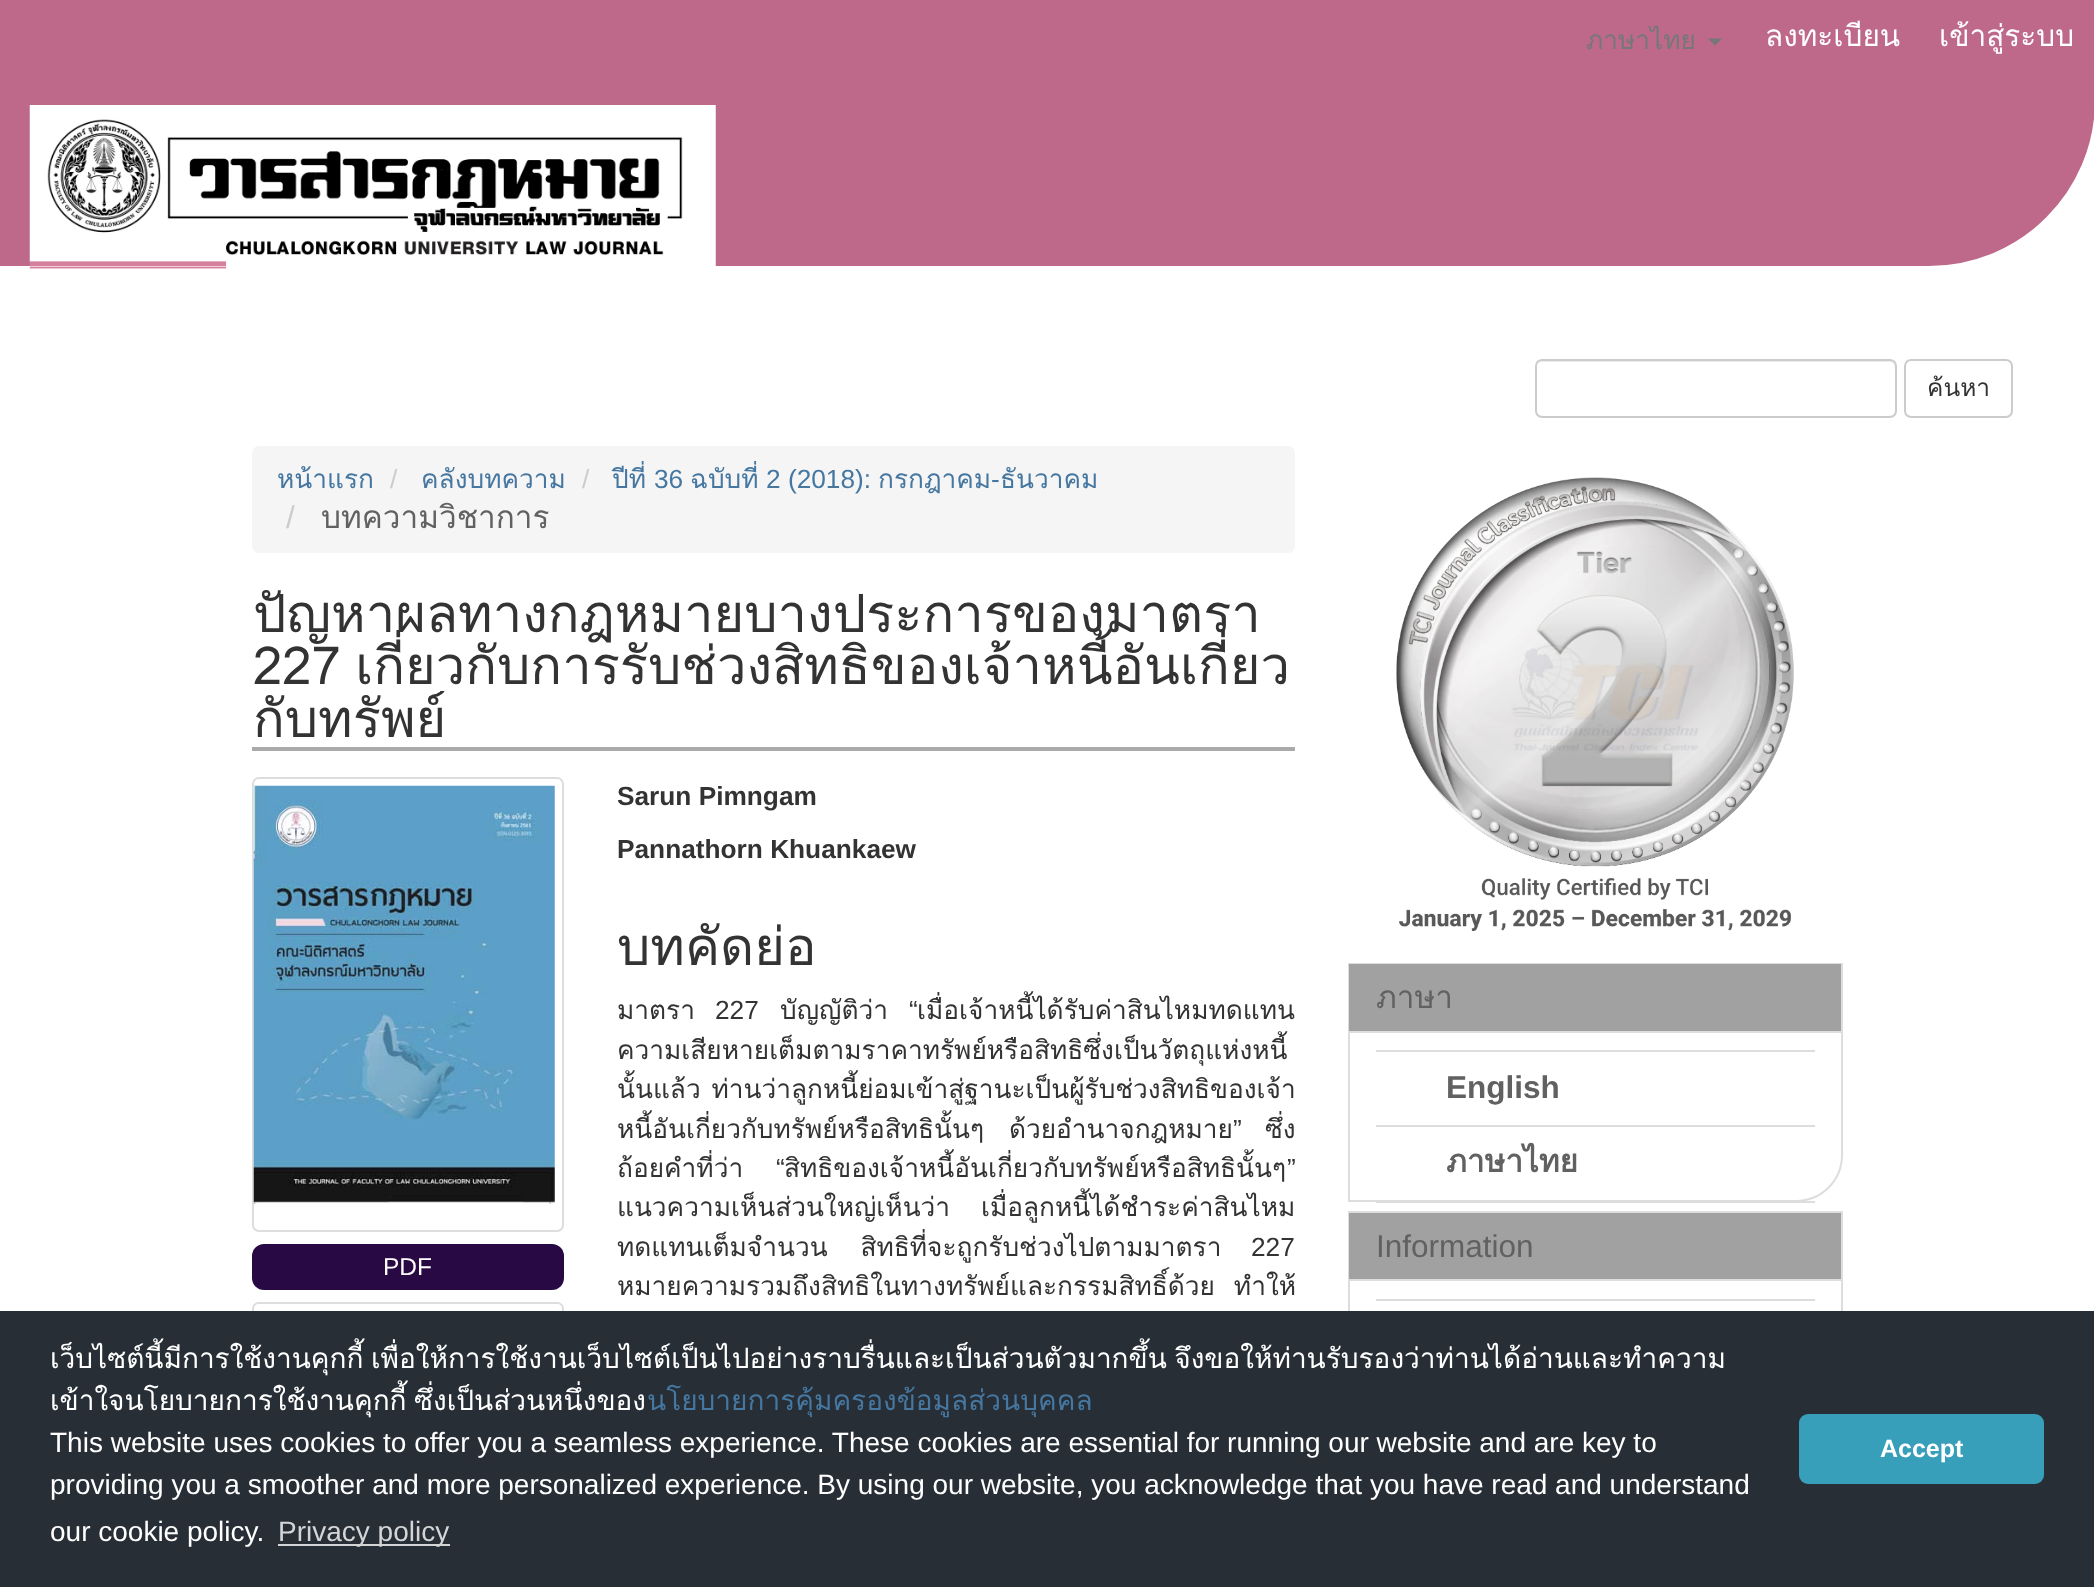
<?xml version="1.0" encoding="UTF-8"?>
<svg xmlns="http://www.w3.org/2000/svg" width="2094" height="1587">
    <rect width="100%" height="100%" fill="#FFFFFF"/>
    <path d="M 1 1 H 2094 V 100 C 2094 191 2020 265 1929 265 H 1 Z" fill="#BE698A" stroke="#BE698A" stroke-width="2"/>
    <text x="1586" y="49" font-family="Loma" font-size="26.25" fill="#777777">ภาษาไทย</text>
    <path d="M 1708 38.5 H 1722 L 1715 45.5 Z" fill="#777777"/>
    <text x="1765" y="46" font-family="Loma" font-size="29.75" fill="#FFFFFF">ลงทะเบียน</text>
    <text x="1939" y="46" font-family="Loma" font-size="29.75" fill="#FFFFFF">เข้าสู่ระบบ</text>
    <image x="29" y="105" width="687" height="164" href="img_01.png"/>
    <path d="M 1542 362 H 1890 C 1893 362 1895 365 1895 368 V 366 C 1895 363 1893 361 1890 361 H 1542 C 1540 361 1538 363 1537 365 C 1538 363 1540 362 1542 362 Z" fill="#ECECEC"/>
    <rect x="1536" y="360" width="360" height="57" rx="6" fill="none" stroke="#CCCCCC" stroke-width="2"/>
    <rect x="1905" y="360" width="107" height="57" rx="6" fill="none" stroke="#CCCCCC" stroke-width="2"/>
    <text x="1927" y="396" font-family="Loma" font-size="24.5" fill="#333333">ค้นหา</text>
    <rect x="252" y="446" width="1043" height="107" rx="7" fill="#F5F5F5"/>
    <text x="277" y="488" font-family="Loma" font-size="26.25" fill="#4577A1">หน้าแรก</text>
    <text x="390" y="488" font-family="Liberation Sans" font-size="26.25" fill="#CCCCCC">/</text>
    <text x="421" y="488" font-family="Loma" font-size="26.25" fill="#4577A1">คลังบทความ</text>
    <text x="582" y="488" font-family="Liberation Sans" font-size="26.25" fill="#CCCCCC">/</text>
    <text x="612" y="488" font-family="Loma" font-size="26.25" fill="#4577A1">ปีที่</text>
    <text x="654" y="488" font-family="Liberation Sans" font-size="26.25" fill="#4577A1">36</text>
    <text x="690" y="488" font-family="Loma" font-size="26.25" fill="#4577A1">ฉบับที่</text>
    <text x="766" y="488" font-family="Liberation Sans" font-size="26.25" fill="#4577A1">2 (2018):</text>
    <text x="878" y="488" font-family="Loma" font-size="26.25" fill="#4577A1">กรกฎาคม</text>
    <text x="991" y="488" font-family="Liberation Sans" font-size="26.25" fill="#4577A1">-</text>
    <text x="1000" y="488" font-family="Loma" font-size="26.25" fill="#4577A1">ธันวาคม</text>
    <text x="286" y="528" font-family="Liberation Sans" font-size="31.5" fill="#CCCCCC">/</text>
    <text x="321" y="528" font-family="Loma" font-size="31.5" fill="#616161">บทความวิชาการ</text>
    <rect x="252" y="747" width="1043" height="4" fill="#AAAAAA"/>
    <text font-family="Loma" font-size="52.5" fill="#333333">
        <tspan x="253" y="632">ปัญหาผลทางกฎหมายบางประการของมาตรา</tspan>
        <tspan x="253" y="684" word-spacing="-3">227 เกี่ยวกับการรับช่วงสิทธิของเจ้าหนี้อันเกี่ยว</tspan>
        <tspan x="253" y="737">กับทรัพย์</tspan>
    </text>
    <rect x="253" y="778" width="310" height="453" rx="6" fill="none" stroke="#DDDDDD" stroke-width="2"/>
    <image x="253" y="785" width="302" height="419" href="img_02.png"/>
    <rect x="252" y="1244" width="312" height="46" rx="12" fill="#290944"/>
    <text x="383" y="1275" font-family="Liberation Sans" font-size="24.5" fill="#FFFFFF">PDF</text>
    <path d="M 259 1303 H 557 C 560.5 1303 563 1305.5 563 1309 V 1418 H 253 V 1309 C 253 1305.5 255.5 1303 259 1303 Z" fill="none" stroke="#DDDDDD" stroke-width="2"/>
    <text x="617" y="805" font-family="Liberation Sans" font-size="26.25" font-weight="700" fill="#333333">Sarun Pimngam</text>
    <text x="617" y="858" font-family="Liberation Sans" font-size="26.25" font-weight="700" fill="#333333">Pannathorn Khuankaew</text>
    <text x="617" y="965" font-family="Loma" font-size="52.5" fill="#333333">บทคัดย่อ</text>
    <text x="715" y="1019" font-family="Liberation Sans" font-size="26.25" fill="#333333">227</text>
    <text x="780" y="1019" font-family="Loma" font-size="26.25" fill="#333333">บัญญัติว่า</text>
    <text x="909" y="1019" font-family="Liberation Sans" font-size="26.25" fill="#333333">“</text>
    <text x="917" y="1019" font-family="Loma" font-size="26.25" fill="#333333">เมื่อเจ้าหนี้ได้รับค่าสินไหมทดแทน</text>
    <text font-family="Loma" font-size="26.25" fill="#333333">
        <tspan x="617" y="1019">มาตรา</tspan>
        <tspan x="617" y="1059">ความเสียหายเต็มตามราคาทรัพย์หรือสิทธิซึ่งเป็นวัตถุแห่งหนี้</tspan>
        <tspan x="617" y="1098" word-spacing="2">นั้นแล้ว ท่านว่าลูกหนี้ย่อมเข้าสู่ฐานะเป็นผู้รับช่วงสิทธิของเจ้า</tspan>
        <tspan x="617" y="1138" word-spacing="16">หนี้อันเกี่ยวกับทรัพย์หรือสิทธินั้นๆ ด้วยอำนาจกฎหมาย</tspan>
    </text>
    <text x="1233" y="1138" font-family="Liberation Sans" font-size="26.25" fill="#333333">”</text>
    <text x="1265" y="1138" font-family="Loma" font-size="26.25" fill="#333333">ซึ่ง</text>
    <text x="617" y="1177" font-family="Loma" font-size="26.25" fill="#333333">ถ้อยคำที่ว่า</text>
    <text x="776" y="1177" font-family="Liberation Sans" font-size="26.25" fill="#333333">“</text>
    <text x="784" y="1177" font-family="Loma" font-size="26.25" fill="#333333">สิทธิของเจ้าหนี้อันเกี่ยวกับทรัพย์หรือสิทธินั้นๆ</text>
    <text x="1287" y="1177" font-family="Liberation Sans" font-size="26.25" fill="#333333">”</text>
    <text font-family="Loma" font-size="26.25" fill="#333333">
        <tspan x="617" y="1216" word-spacing="22">แนวความเห็นส่วนใหญ่เห็นว่า เมื่อลูกหนี้ได้ชำระค่าสินไหม</tspan>
        <tspan x="617" y="1256" word-spacing="24">ทดแทนเต็มจำนวน สิทธิที่จะถูกรับช่วงไปตามมาตรา</tspan>
    </text>
    <text x="1251" y="1256" font-family="Liberation Sans" font-size="26.25" fill="#333333">227</text>
    <text x="617" y="1295" word-spacing="10" font-family="Loma" font-size="26.25" fill="#333333">หมายความรวมถึงสิทธิในทางทรัพย์และกรรมสิทธิ์ด้วย ทำให้</text>
    <image x="1396" y="477" width="398" height="454" href="img_03.png"/>
    <path d="M 1349 964 H 1842 V 1155 C 1842 1180.5 1821.5 1201 1796 1201 H 1349 Z" fill="none" stroke="#DDDDDD" stroke-width="2"/>
    <rect x="1349" y="964" width="492" height="67" fill="#A1A1A1"/>
    <rect x="1349" y="1031" width="492" height="2" fill="#DDDDDD"/>
    <text x="1376" y="1008" font-family="Loma" font-size="31.5" fill="#616161">ภาษา</text>
    <rect x="1376" y="1050" width="439" height="2" fill="#DDDDDD"/>
    <text x="1446" y="1098" font-family="Liberation Sans" font-size="31.5" font-weight="700" fill="#616161">English</text>
    <rect x="1376" y="1125" width="439" height="2" fill="#DDDDDD"/>
    <rect x="1376" y="1201" width="439" height="2" fill="#DDDDDD"/>
    <text x="1446" y="1172" font-family="Loma" font-size="31.5" font-weight="700" fill="#616161">ภาษาไทย</text>
    <rect x="1349" y="1212" width="493" height="331" fill="none" stroke="#DDDDDD" stroke-width="2"/>
    <rect x="1349" y="1213" width="492" height="66" fill="#A1A1A1"/>
    <rect x="1349" y="1279" width="492" height="2" fill="#DDDDDD"/>
    <text x="1376" y="1257" font-family="Liberation Sans" font-size="31.5" fill="#616161">Information</text>
    <rect x="1376" y="1299" width="439" height="2" fill="#DDDDDD"/>
    <rect x="0" y="1311" width="2094" height="276" fill="#272E35"/>
    <text font-family="Loma" font-size="28" fill="#FFFFFF">
        <tspan x="50" y="1368" word-spacing="-2">เว็บไซต์นี้มีการใช้งานคุกกี้ เพื่อให้การใช้งานเว็บไซต์เป็นไปอย่างราบรื่นและเป็นส่วนตัวมากขึ้น จึงขอให้ท่านรับรองว่าท่านได้อ่านและทำความ</tspan>
        <tspan x="50" y="1410" word-spacing="-2">เข้าใจนโยบายการใช้งานคุกกี้ ซึ่งเป็นส่วนหนึ่งของ</tspan>
    </text>
    <text x="647" y="1410" font-family="Loma" font-size="28" fill="#4577A1">นโยบายการคุ้มครองข้อมูลส่วนบุคคล</text>
    <text font-family="Liberation Sans" font-size="28" fill="#FFFFFF">
        <tspan x="50" y="1452">This website uses cookies to offer you a seamless experience. These cookies are essential for running our website and are key to</tspan>
        <tspan x="50" y="1494">providing you a smoother and more personalized experience. By using our website, you acknowledge that you have read and understand</tspan>
        <tspan x="50" y="1541">our cookie policy.</tspan>
    </text>
    <rect x="278" y="1544" width="172" height="2" fill="#D4D5D7"/>
    <text x="278" y="1541" font-family="Liberation Sans" font-size="28" fill="#D4D5D7">Privacy policy</text>
    <rect x="1799" y="1414" width="245" height="70" rx="9" fill="#389FBB"/>
    <text x="1880" y="1457" font-family="Liberation Sans" font-size="25" font-weight="700" fill="#FFFFFF">Accept</text>
</svg>
